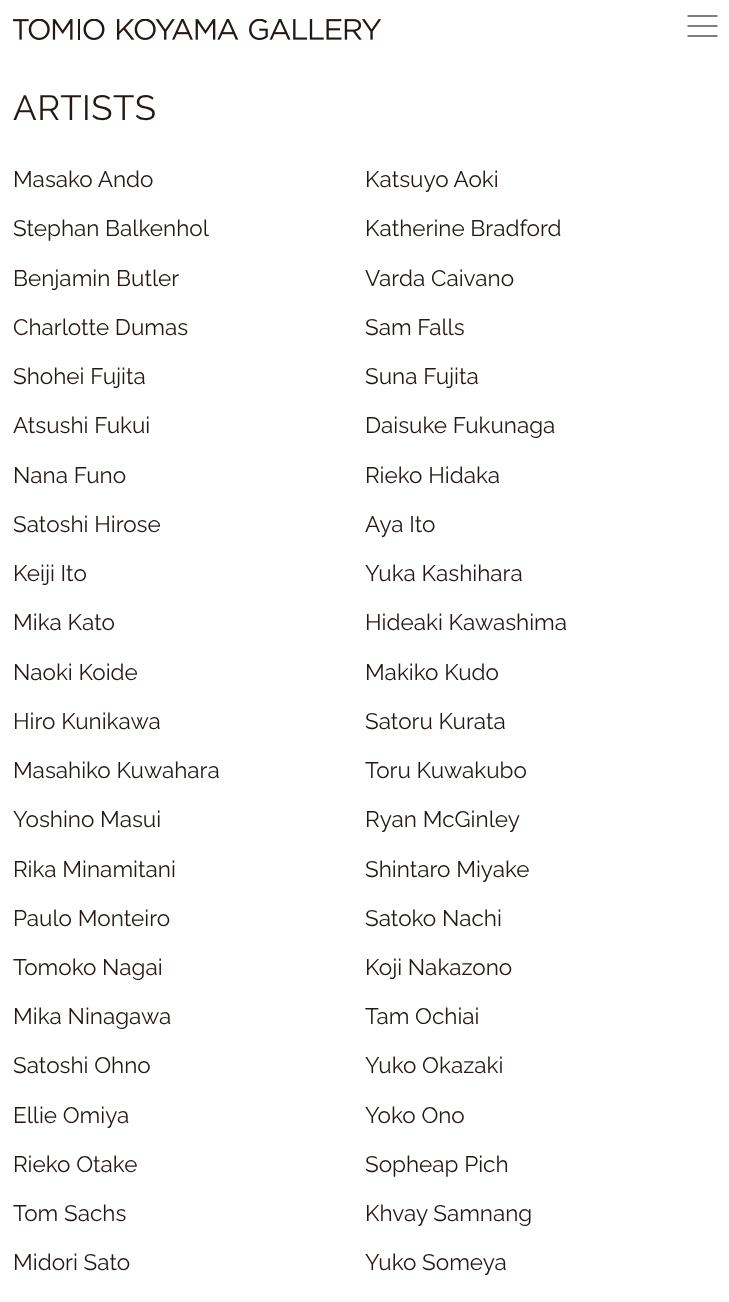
<?xml version="1.0" encoding="UTF-8"?>
<svg xmlns="http://www.w3.org/2000/svg" width="729" height="1302">
    <rect width="100%" height="100%" fill="#FFFFFF"/>
    <image x="13" y="19" width="368" height="21" href="img_01.png"/>
    <path d="M 687.5 16 H 717.5 M 687.5 26 H 717.5 M 687.5 36 H 717.5" fill="none" stroke="#000000" stroke-width="1.2"/>
    <text x="13" y="120" font-family="Raleway" font-size="35" letter-spacing="0.5" fill="#231815">ARTISTS</text>
    <text x="13" y="187" font-family="Raleway" font-size="22.5" fill="#231815">Masako Ando</text>
    <text x="365" y="187" font-family="Raleway" font-size="22.5" fill="#231815">Katsuyo Aoki</text>
    <text x="13" y="236" font-family="Raleway" font-size="22.5" fill="#231815">Stephan Balkenhol</text>
    <text x="365" y="236" font-family="Raleway" font-size="22.5" fill="#231815">Katherine Bradford</text>
    <text x="13" y="286" font-family="Raleway" font-size="22.5" fill="#231815">Benjamin Butler</text>
    <text x="365" y="286" font-family="Raleway" font-size="22.5" fill="#231815">Varda Caivano</text>
    <text x="13" y="335" font-family="Raleway" font-size="22.5" fill="#231815">Charlotte Dumas</text>
    <text x="365" y="335" font-family="Raleway" font-size="22.5" fill="#231815">Sam Falls</text>
    <text x="13" y="384" font-family="Raleway" font-size="22.5" fill="#231815">Shohei Fujita</text>
    <text x="365" y="384" font-family="Raleway" font-size="22.5" fill="#231815">Suna Fujita</text>
    <text x="13" y="433" font-family="Raleway" font-size="22.5" fill="#231815">Atsushi Fukui</text>
    <text x="365" y="433" font-family="Raleway" font-size="22.5" fill="#231815">Daisuke Fukunaga</text>
    <text x="13" y="483" font-family="Raleway" font-size="22.5" fill="#231815">Nana Funo</text>
    <text x="365" y="483" font-family="Raleway" font-size="22.5" fill="#231815">Rieko Hidaka</text>
    <text x="13" y="532" font-family="Raleway" font-size="22.5" fill="#231815">Satoshi Hirose</text>
    <text x="365" y="532" font-family="Raleway" font-size="22.5" fill="#231815">Aya Ito</text>
    <text x="13" y="581" font-family="Raleway" font-size="22.5" fill="#231815">Keiji Ito</text>
    <text x="365" y="581" font-family="Raleway" font-size="22.5" fill="#231815">Yuka Kashihara</text>
    <text x="13" y="630" font-family="Raleway" font-size="22.5" fill="#231815">Mika Kato</text>
    <text x="365" y="630" font-family="Raleway" font-size="22.5" fill="#231815">Hideaki Kawashima</text>
    <text x="13" y="680" font-family="Raleway" font-size="22.5" fill="#231815">Naoki Koide</text>
    <text x="365" y="680" font-family="Raleway" font-size="22.5" fill="#231815">Makiko Kudo</text>
    <text x="13" y="729" font-family="Raleway" font-size="22.5" fill="#231815">Hiro Kunikawa</text>
    <text x="365" y="729" font-family="Raleway" font-size="22.5" fill="#231815">Satoru Kurata</text>
    <text x="13" y="778" font-family="Raleway" font-size="22.5" fill="#231815">Masahiko Kuwahara</text>
    <text x="365" y="778" font-family="Raleway" font-size="22.5" fill="#231815">Toru Kuwakubo</text>
    <text x="13" y="827" font-family="Raleway" font-size="22.5" fill="#231815">Yoshino Masui</text>
    <text x="365" y="827" font-family="Raleway" font-size="22.5" fill="#231815">Ryan McGinley</text>
    <text x="13" y="877" font-family="Raleway" font-size="22.5" fill="#231815">Rika Minamitani</text>
    <text x="365" y="877" font-family="Raleway" font-size="22.5" fill="#231815">Shintaro Miyake</text>
    <text x="13" y="926" font-family="Raleway" font-size="22.5" fill="#231815">Paulo Monteiro</text>
    <text x="365" y="926" font-family="Raleway" font-size="22.5" fill="#231815">Satoko Nachi</text>
    <text x="13" y="975" font-family="Raleway" font-size="22.5" fill="#231815">Tomoko Nagai</text>
    <text x="365" y="975" font-family="Raleway" font-size="22.5" fill="#231815">Koji Nakazono</text>
    <text x="13" y="1024" font-family="Raleway" font-size="22.5" fill="#231815">Mika Ninagawa</text>
    <text x="365" y="1024" font-family="Raleway" font-size="22.5" fill="#231815">Tam Ochiai</text>
    <text x="13" y="1073" font-family="Raleway" font-size="22.5" fill="#231815">Satoshi Ohno</text>
    <text x="365" y="1073" font-family="Raleway" font-size="22.5" fill="#231815">Yuko Okazaki</text>
    <text x="13" y="1123" font-family="Raleway" font-size="22.5" fill="#231815">Ellie Omiya</text>
    <text x="365" y="1123" font-family="Raleway" font-size="22.5" fill="#231815">Yoko Ono</text>
    <text x="13" y="1172" font-family="Raleway" font-size="22.5" fill="#231815">Rieko Otake</text>
    <text x="365" y="1172" font-family="Raleway" font-size="22.5" fill="#231815">Sopheap Pich</text>
    <text x="13" y="1221" font-family="Raleway" font-size="22.5" fill="#231815">Tom Sachs</text>
    <text x="365" y="1221" font-family="Raleway" font-size="22.5" fill="#231815">Khvay Samnang</text>
    <text x="13" y="1270" font-family="Raleway" font-size="22.5" fill="#231815">Midori Sato</text>
    <text x="365" y="1270" font-family="Raleway" font-size="22.5" fill="#231815">Yuko Someya</text>
</svg>
